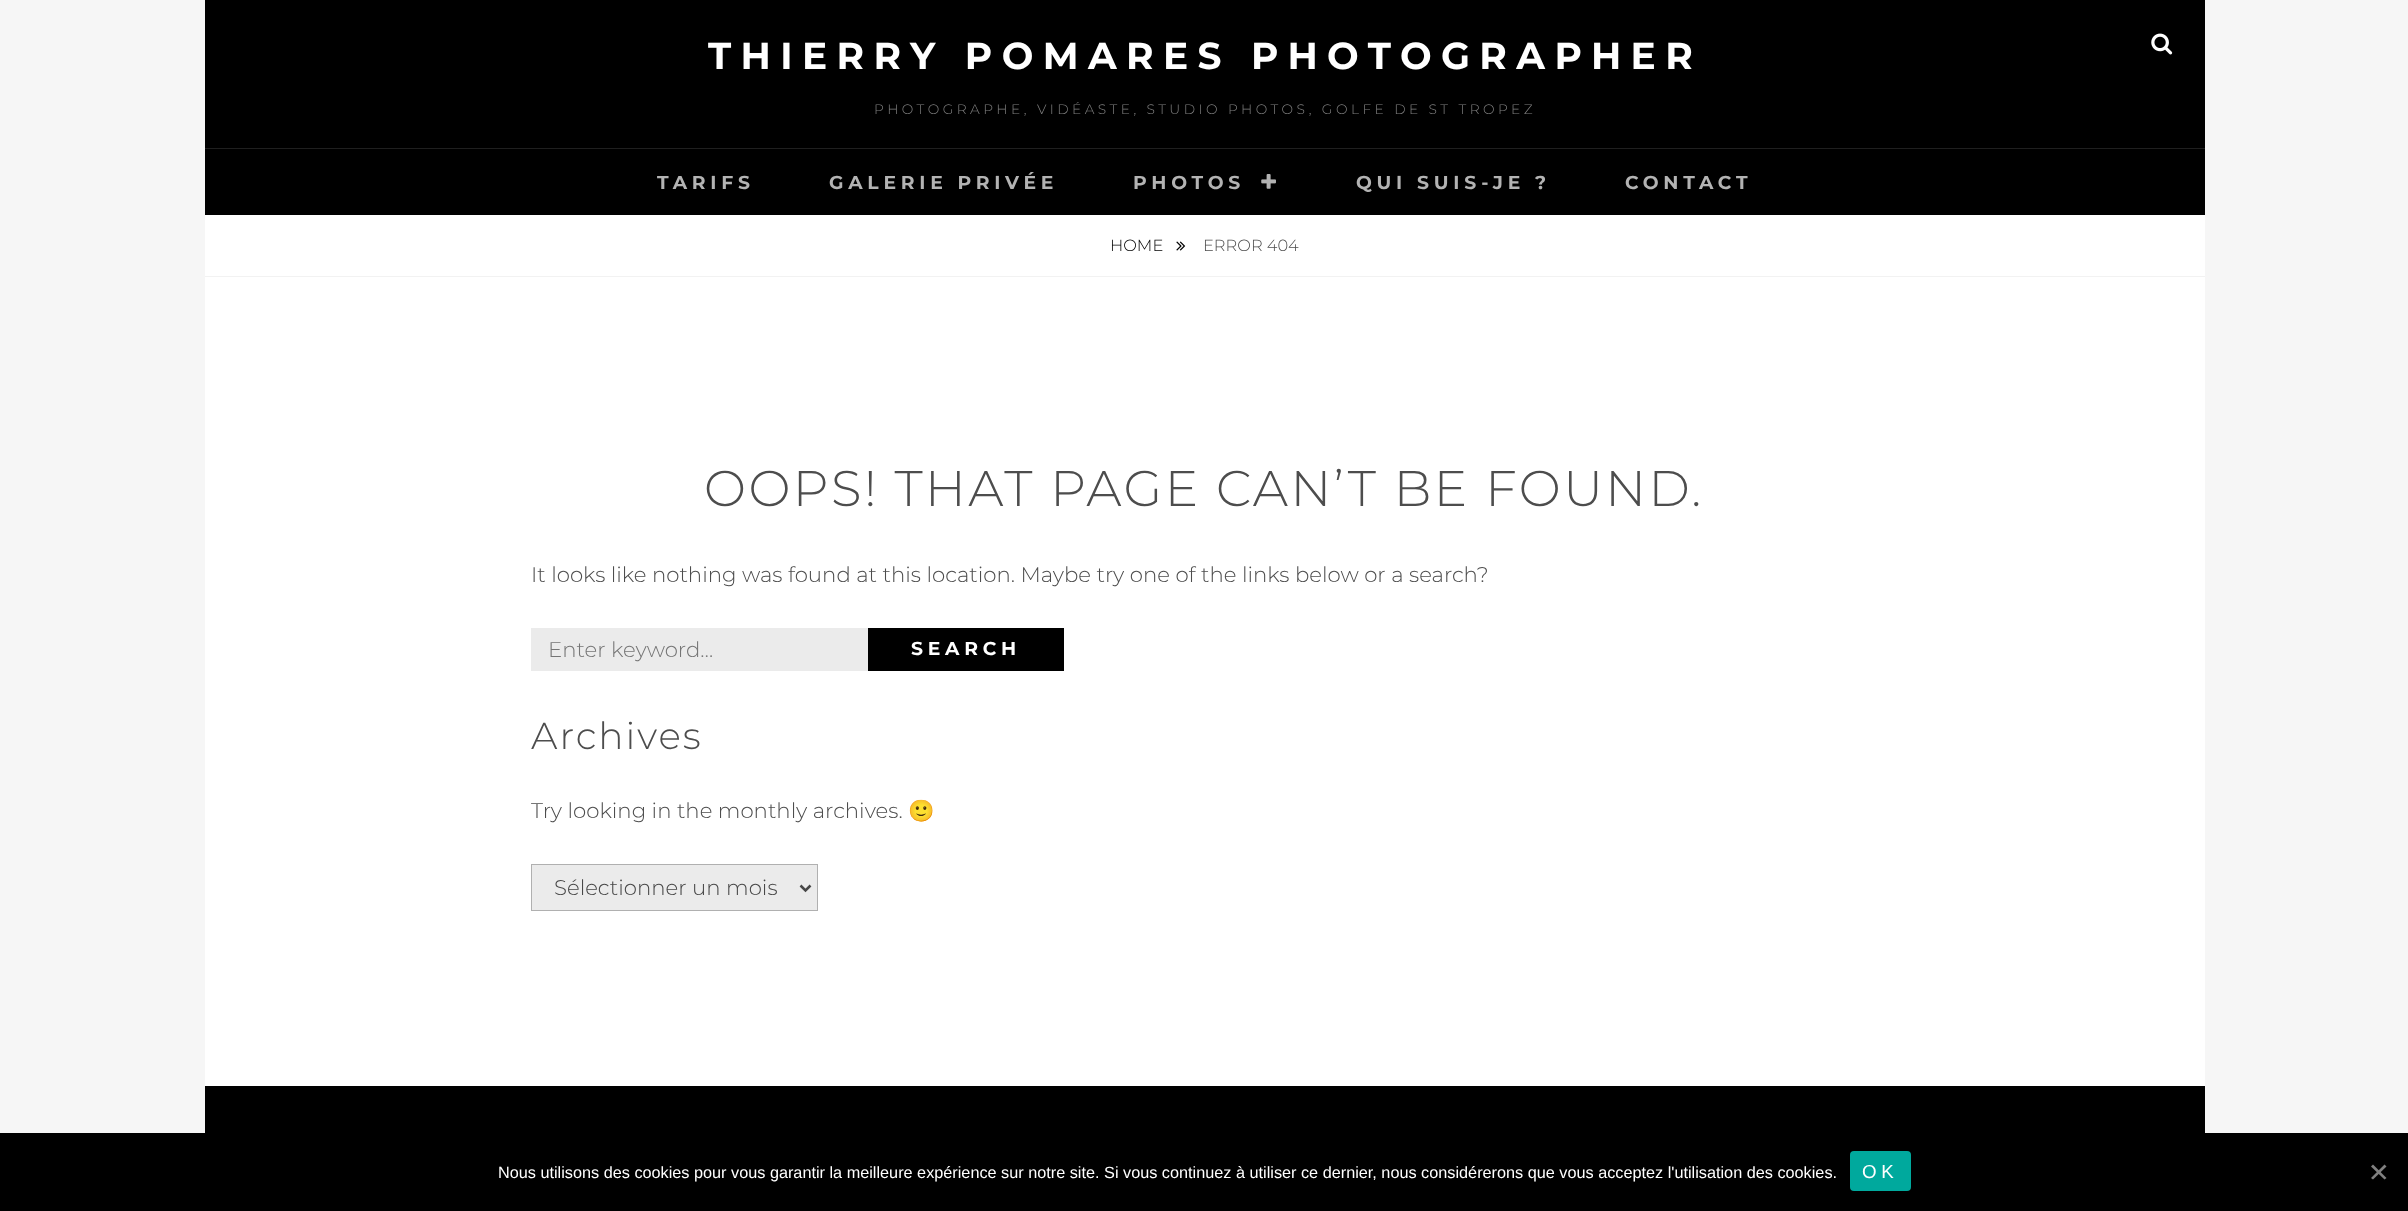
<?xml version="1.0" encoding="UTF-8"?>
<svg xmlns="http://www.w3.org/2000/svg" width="2408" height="1211">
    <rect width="100%" height="100%" fill="#F6F6F6"/>
    <rect x="205" y="215" width="2000" height="871" fill="#FFFFFF"/>
    <rect x="205" y="0" width="2000" height="215" fill="#000000"/>
    <text x="708" y="69" font-family="Montserrat" font-size="37.5" font-weight="700" letter-spacing="9.4" fill="#FFFFFF">THIERRY POMARES PHOTOGRAPHER</text>
    <text x="874" y="114" font-family="Montserrat" font-size="13.75" font-weight="300" letter-spacing="3.45" fill="#808080">PHOTOGRAPHE, VIDÉASTE, STUDIO PHOTOS, GOLFE DE ST TROPEZ</text>
    <image x="2151" y="33" width="22" height="22" href="img_01.png"/>
    <rect x="205" y="148" width="2000" height="1" fill="#1F1F1F"/>
    <text x="657" y="189" font-family="Montserrat" font-size="18.75" font-weight="700" letter-spacing="4.75" fill="#B3B3B3">TARIFS</text>
    <text x="829" y="189" font-family="Montserrat" font-size="18.75" font-weight="700" letter-spacing="4.75" fill="#B3B3B3">GALERIE PRIVÉE</text>
    <text x="1133" y="189" font-family="Montserrat" font-size="18.75" font-weight="700" letter-spacing="4.75" fill="#B3B3B3">PHOTOS</text>
    <image x="1261" y="174" width="15" height="15" href="img_02.png"/>
    <text x="1356" y="189" font-family="Montserrat" font-size="18.75" font-weight="700" letter-spacing="4.75" fill="#B3B3B3">QUI SUIS-JE ?</text>
    <text x="1625" y="189" font-family="Montserrat" font-size="18.75" font-weight="700" letter-spacing="4.75" fill="#B3B3B3">CONTACT</text>
    <rect x="205" y="276" width="2000" height="1" fill="#F2F2F2"/>
    <text x="1110" y="251" font-family="Montserrat" font-size="16.25" font-weight="300" fill="#000000">HOME</text>
    <image x="1176" y="241" width="10" height="10" href="img_03.png"/>
    <text x="1203" y="251" font-family="Montserrat" font-size="16.25" font-weight="300" fill="#4D4D4D">ERROR 404</text>
    <text x="704" y="506" font-family="Montserrat" font-size="50" font-weight="300" letter-spacing="2.5" fill="#4D4D4D">OOPS! THAT PAGE CAN’T BE FOUND.</text>
    <text x="531" y="582" font-family="Montserrat" font-size="21.25" font-weight="300" fill="#4D4D4D">It looks like nothing was found at this location. Maybe try one of the links below or a search?</text>
    <rect x="531" y="628" width="337" height="43" fill="#EBEBEB"/>
    <text x="548" y="657" font-family="Montserrat" font-size="21.25" font-weight="300" fill="#757575">Enter keyword…</text>
    <rect x="868" y="628" width="196" height="43" fill="#000000"/>
    <text x="911" y="655" font-family="Montserrat" font-size="18.75" font-weight="700" letter-spacing="4.75" fill="#FFFFFF">SEARCH</text>
    <text x="531" y="749" font-family="Montserrat" font-size="37.5" font-weight="300" letter-spacing="2" fill="#4D4D4D">Archives</text>
    <text x="531" y="818" font-family="Montserrat" font-size="21.25" font-weight="300" fill="#4D4D4D">Try looking in the monthly archives.</text>
    <text x="908" y="818" font-family="Noto Color Emoji" font-size="21.25" fill="#4D4D4D">🙂</text>
    <rect x="531.5" y="864.5" width="286" height="46" fill="#EBEBEB" stroke="#B0B0B0"/>
    <path d="M 800.5 885.5 L 805.5 890.5 L 810.5 885.5" fill="none" stroke="#474747" stroke-width="2.5"/>
    <text x="554" y="895" font-family="Montserrat" font-size="21.25" font-weight="300" fill="#474747">Sélectionner un mois</text>
    <rect x="205" y="1086" width="2000" height="47" fill="#000000"/>
    <rect x="0" y="1133" width="2408" height="78" fill="#000000"/>
    <text x="498" y="1178" font-family="Liberation Sans" font-size="16.25" fill="#FFFFFF">Nous utilisons des cookies pour vous garantir la meilleure expérience sur notre site. Si vous continuez à utiliser ce dernier, nous considérerons que vous acceptez l'utilisation des cookies.</text>
    <rect x="1850" y="1151" width="61" height="40" rx="4" fill="#00A99D"/>
    <text x="1862" y="1178" font-family="Liberation Sans" font-size="18.75" letter-spacing="4.75" fill="#FFFFFF">OK</text>
    <path d="M 2384.5 1164.5 L 2386.5 1166.5 L 2373 1179.5 L 2371 1178 Z" fill="#808080"/>
    <path d="M 2371 1166.5 L 2373 1164.5 L 2386.5 1178 L 2384.5 1179.5 Z" fill="#808080"/>
</svg>
